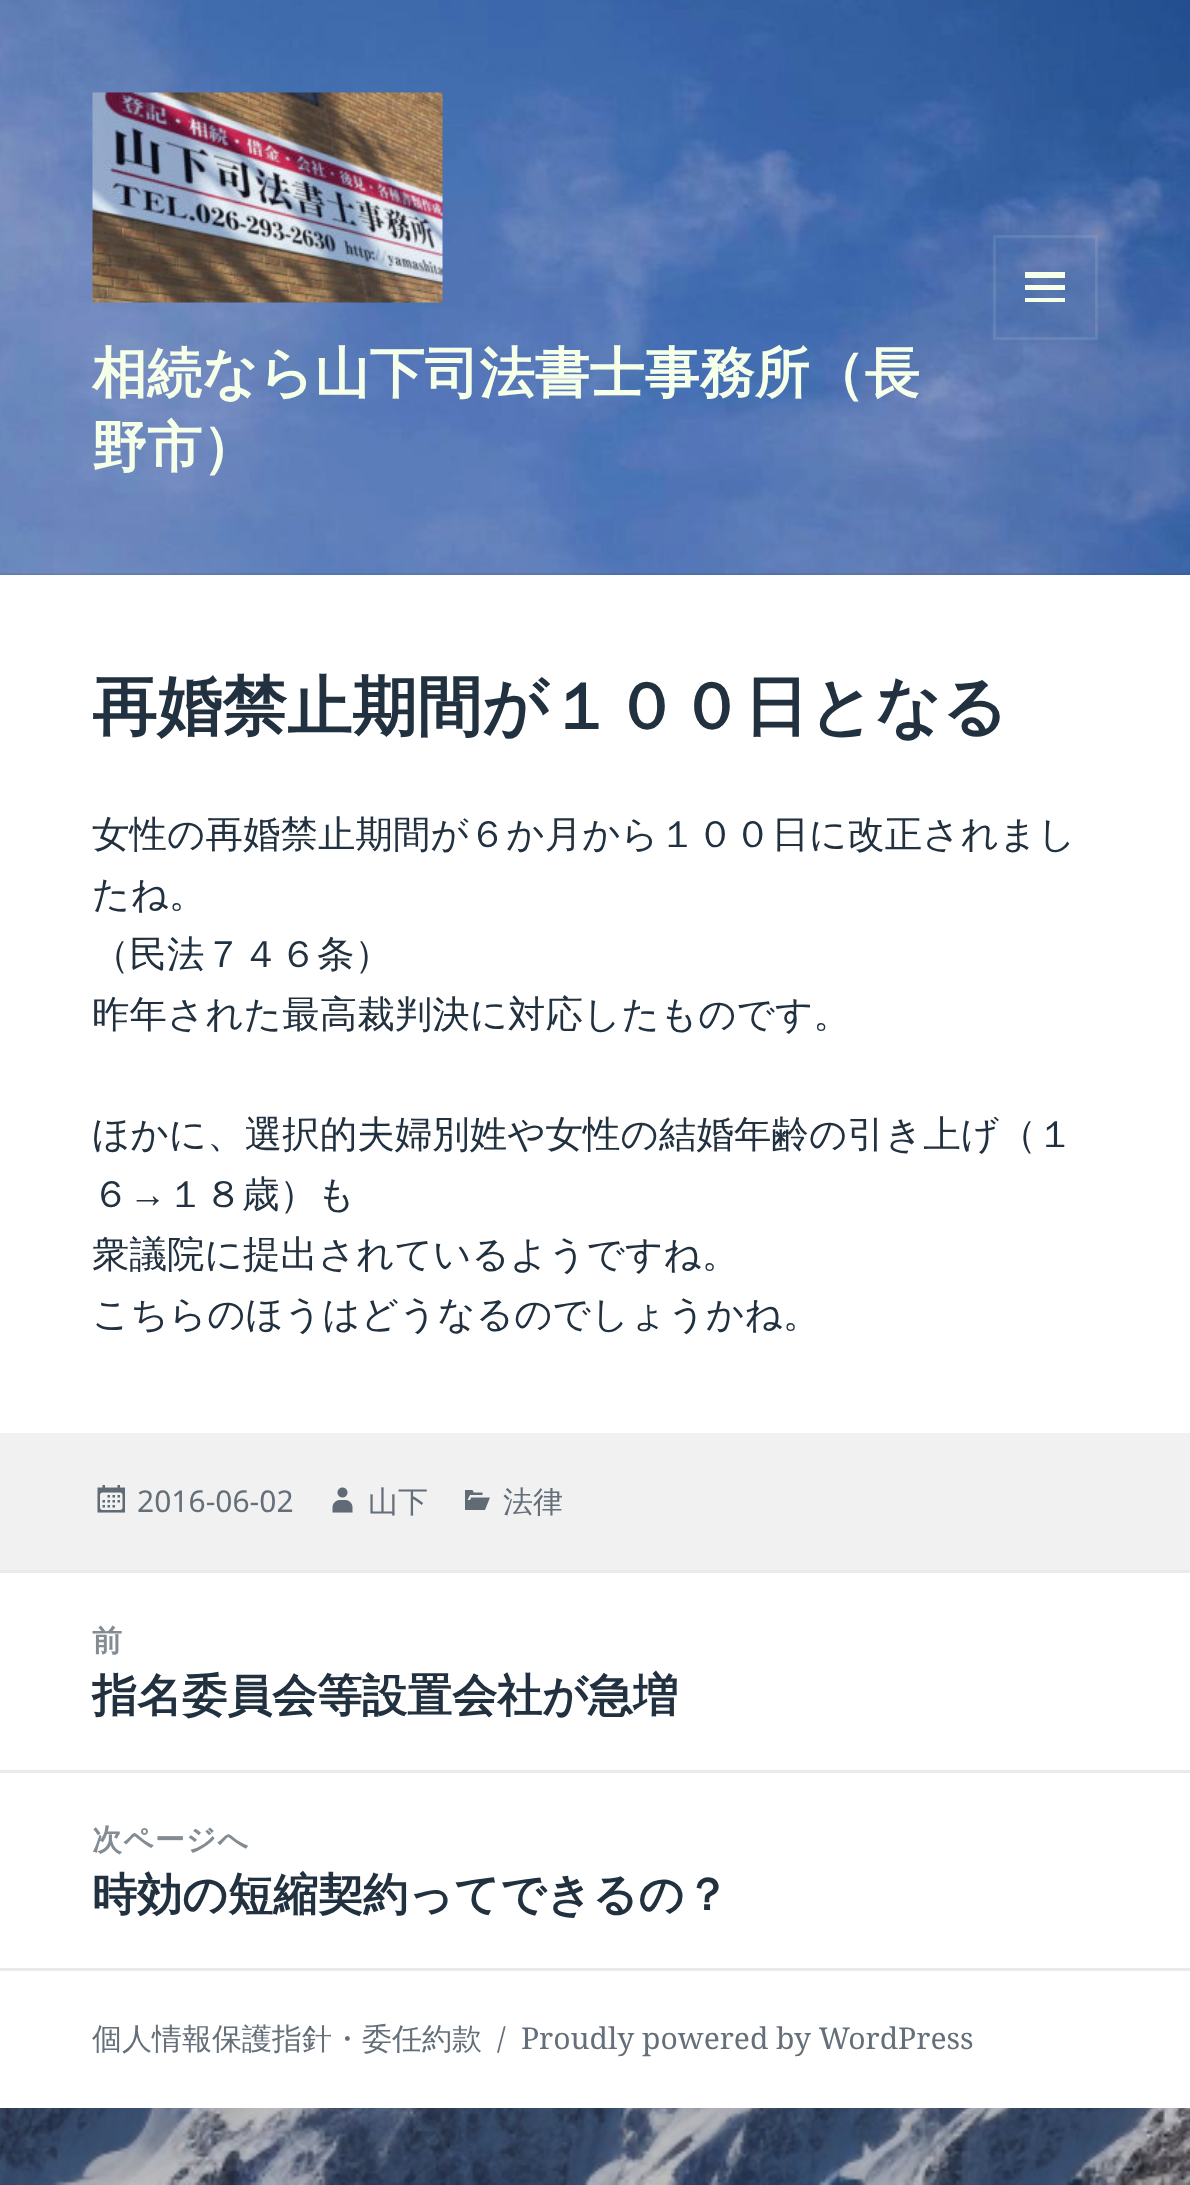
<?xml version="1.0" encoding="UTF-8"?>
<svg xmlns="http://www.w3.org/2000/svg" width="1190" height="2185">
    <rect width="100%" height="100%" fill="#FFFFFF"/>
    <image x="0" y="2108" width="1190" height="77" href="img_01.png"/>
    <image x="0" y="0" width="1190" height="575" href="img_02.png"/>
    <rect x="0" y="573" width="1190" height="2" fill="#22313F" fill-opacity="0.1"/>
    <image x="92" y="92" width="351" height="211" href="img_03.png"/>
    <rect x="994.5" y="236.5" width="102" height="102" fill="none" stroke="#F6FFE8" stroke-opacity="0.1" stroke-width="3"/>
    <path d="M 1025 302 V 298 H 1065 V 302 Z M 1025 272 H 1065 V 278 H 1025 Z M 1025 290 V 285 H 1065 V 290 Z" fill="#F6FFE8"/>
    <text font-family="WenQuanYi Zen Hei" font-size="55" font-weight="700" fill="#F6FFE8">
        <tspan x="92" y="392">相続なら山下司法書士事務所（長</tspan>
        <tspan x="92" y="466">野市）</tspan>
    </text>
    <text x="92" y="729" font-family="WenQuanYi Zen Hei" font-size="65" font-weight="700" fill="#22313F">再婚禁止期間が１００日となる</text>
    <text font-family="WenQuanYi Zen Hei" font-size="37.5" font-weight="500" fill="#22313F">
        <tspan x="92" y="847">女性の再婚禁止期間が６か月から１００日に改正されまし</tspan>
        <tspan x="92" y="907">たね。</tspan>
        <tspan x="92" y="967">（民法７４６条）</tspan>
        <tspan x="92" y="1027">昨年された最高裁判決に対応したものです。</tspan>
    </text>
    <text font-family="WenQuanYi Zen Hei" font-size="37.5" font-weight="500" fill="#22313F">
        <tspan x="92" y="1147">ほかに、選択的夫婦別姓や女性の結婚年齢の引き上げ（１</tspan>
        <tspan x="92" y="1207">６</tspan>
    </text>
    <text x="129" y="1207" font-family="Liberation Serif" font-size="37.5" fill="#22313F">→</text>
    <text x="167" y="1207" font-family="WenQuanYi Zen Hei" font-size="37.5" font-weight="500" fill="#22313F">１８歳）も</text>
    <text font-family="WenQuanYi Zen Hei" font-size="37.5" font-weight="500" fill="#22313F">
        <tspan x="92" y="1267">衆議院に提出されているようですね。</tspan>
        <tspan x="92" y="1327">こちらのほうはどうなるのでしょうかね。</tspan>
    </text>
    <rect x="0" y="1433" width="1190" height="137" fill="#F1F1F1"/>
    <image x="97" y="1485" width="28" height="28" href="img_04.png"/>
    <text x="137" y="1512" font-family="Noto Sans" font-size="30" fill="#646F79">2016-06-02</text>
    <image x="332" y="1487" width="21" height="26" href="img_05.png"/>
    <text x="368" y="1512" font-family="WenQuanYi Zen Hei" font-size="30" font-weight="500" fill="#646F79">山下</text>
    <image x="465" y="1490" width="25" height="20" href="img_06.png"/>
    <text x="503" y="1512" font-family="WenQuanYi Zen Hei" font-size="30" font-weight="500" fill="#646F79">法律</text>
    <rect x="0" y="1570" width="1190" height="3" fill="#E9EAEC"/>
    <text x="92" y="1651" font-family="WenQuanYi Zen Hei" font-size="30" font-weight="700" letter-spacing="1" fill="#838C93">前</text>
    <text x="92" y="1711" font-family="WenQuanYi Zen Hei" font-size="45" font-weight="700" fill="#22313F">指名委員会等設置会社が急増</text>
    <rect x="0" y="1770" width="1190" height="3" fill="#E9EAEC"/>
    <text x="92" y="1850" font-family="WenQuanYi Zen Hei" font-size="30" font-weight="700" letter-spacing="1" fill="#838C93">次ページへ</text>
    <text x="92" y="1910" font-family="WenQuanYi Zen Hei" font-size="45" font-weight="700" fill="#22313F">時効の短縮契約ってできるの？</text>
    <rect x="0" y="1968" width="1190" height="3" fill="#E9EAEC"/>
    <text x="92" y="2049" font-family="WenQuanYi Zen Hei" font-size="30" font-weight="500" fill="#646F79">個人情報保護指針・委任約款</text>
    <text x="497" y="2049" font-family="Noto Serif" font-size="30" fill="#646F79">/</text>
    <text x="521" y="2049" font-family="Noto Serif" font-size="30" fill="#646F79">Proudly powered by WordPress</text>
</svg>
